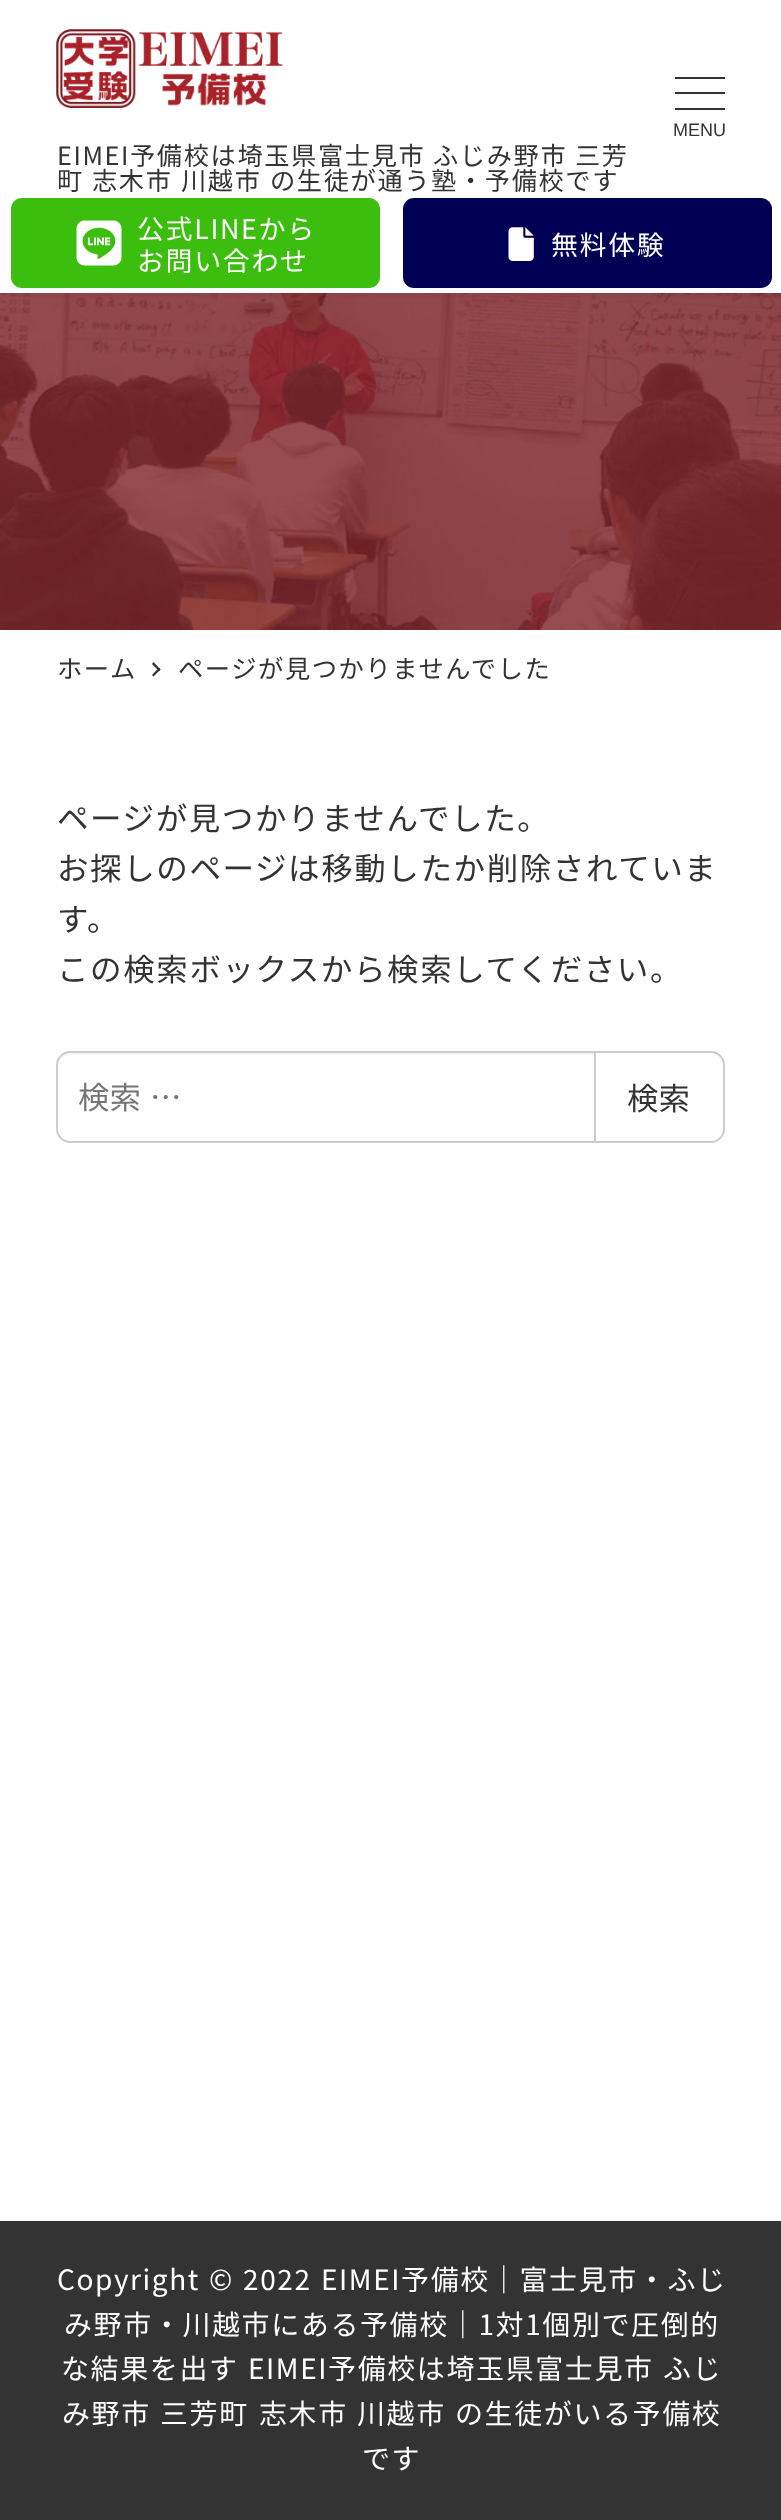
<?xml version="1.0" encoding="UTF-8"?>
<svg xmlns="http://www.w3.org/2000/svg" width="781" height="2520">
    <defs>
        <filter id="blur1" x="-50%" y="-200%" width="200%" height="500%"><feGaussianBlur stdDeviation="2"/></filter>
    </defs>
    <rect width="100%" height="100%" fill="#FFFFFF"/>
    <image x="0" y="293" width="781" height="337" href="img_04.png"/>
    <rect x="-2" y="0" width="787" height="297" fill="#000000" fill-opacity="0.05" filter="url(#blur1)"/>
    <rect x="0" y="0" width="781" height="293" fill="#FFFFFF"/>
    <rect x="675" y="77" width="50" height="2" fill="#333333"/>
    <rect x="675" y="92" width="50" height="2" fill="#333333"/>
    <rect x="675" y="108" width="50" height="2" fill="#333333"/>
    <text x="673" y="136" font-family="Liberation Sans" font-size="18" fill="#333333">MENU</text>
    <image x="56" y="29" width="227" height="79" href="img_01.png"/>
    <text x="57" y="165" font-family="Noto Sans JP" font-size="25.25" letter-spacing="1.6" fill="#333333">EIMEI予備校は埼玉県富士見市</text>
    <text x="433" y="165" font-family="Noto Sans JP" font-size="25.25" letter-spacing="1.6" fill="#333333">ふじみ野市</text>
    <text x="575" y="165" font-family="Noto Sans JP" font-size="25.25" letter-spacing="1.6" fill="#333333">三芳</text>
    <text x="57" y="190" font-family="Noto Sans JP" font-size="25.25" letter-spacing="1.6" fill="#333333">町</text>
    <text x="92" y="190" font-family="Noto Sans JP" font-size="25.25" letter-spacing="1.6" fill="#333333">志木市</text>
    <text x="181" y="190" font-family="Noto Sans JP" font-size="25.25" letter-spacing="1.6" fill="#333333">川越市</text>
    <text x="270" y="190" font-family="Noto Sans JP" font-size="25.25" letter-spacing="1.6" fill="#333333">の生徒が通う塾・予備校です</text>
    <rect x="11" y="198" width="369" height="90" rx="11" fill="#3BBE0D"/>
    <image x="76" y="220" width="46" height="46" href="img_02.png"/>
    <text font-family="Noto Sans JP" font-size="27" letter-spacing="1.6" fill="#FFFFFF">
        <tspan x="137" y="239">公式LINEから</tspan>
        <tspan x="137" y="271">お問い合わせ</tspan>
    </text>
    <rect x="403" y="198" width="369" height="90" rx="11" fill="#000154"/>
    <image x="508" y="227" width="26" height="34" href="img_03.png"/>
    <text x="551" y="255" font-family="Noto Sans JP" font-size="27" letter-spacing="1.6" fill="#FFFFFF">無料体験</text>
    <text x="57" y="678" font-family="Noto Sans JP" font-size="25.25" letter-spacing="1.6" fill="#333333">ホーム</text>
    <path d="M 153.5 662 L 160.5 669.5 L 159 671 L 152 664 Z" fill="#333333"/>
    <path d="M 159 667.5 L 160.5 669.5 L 153.5 676.5 L 152 675 Z" fill="#333333"/>
    <text x="178" y="678" font-family="Noto Sans JP" font-size="25.25" letter-spacing="1.6" fill="#333333">ページが見つかりませんでした</text>
    <text font-family="Noto Sans JP" font-size="31.5" letter-spacing="1.6" fill="#333333">
        <tspan x="57" y="830">ページが見つかりませんでした。</tspan>
        <tspan x="57" y="880">お探しのページは移動したか削除されていま</tspan>
        <tspan x="57" y="931">す。</tspan>
        <tspan x="57" y="981">この検索ボックスから検索してください。</tspan>
    </text>
    <path d="M 595 1052 H 711 C 718 1052 724 1058 724 1065 V 1129 C 724 1136 718 1142 711 1142 H 595 Z" fill="none" stroke="#CCCCCC" stroke-width="2"/>
    <path d="M 70 1051 H 596 V 1143 H 70 C 62.5 1143 56 1136.5 56 1129 V 1065 C 56 1057.5 62.5 1051 70 1051 Z" fill="#FFFFFF"/>
    <path d="M 70 1055 H 594 V 1053 H 70 C 65 1053 61 1056 59 1061 C 62 1058 66 1055 70 1055 Z" fill="#F6F6F6"/>
    <path d="M 70 1052 H 595 V 1142 H 70 C 63 1142 57 1136 57 1129 V 1065 C 57 1058 63 1052 70 1052 Z" fill="none" stroke="#CCCCCC" stroke-width="2"/>
    <text x="78" y="1109" font-family="Noto Sans JP" font-size="31.5" fill="#757575">検索</text>
    <text x="150" y="1109" font-family="Noto Sans JP" font-size="31.5" fill="#757575">…</text>
    <text x="627" y="1110" font-family="Noto Sans JP" font-size="31.5" fill="#333333">検索</text>
    <rect x="0" y="2221" width="781" height="299" fill="#333333"/>
    <text x="57" y="2290" font-family="Noto Sans JP" font-size="28" letter-spacing="1.6" fill="#FFFFFF">Copyright</text>
    <text x="209" y="2290" font-family="Noto Sans JP" font-size="28" letter-spacing="1.6" fill="#FFFFFF">©</text>
    <text x="243" y="2290" font-family="Noto Sans JP" font-size="28" letter-spacing="1.6" fill="#FFFFFF">2022</text>
    <text x="321" y="2290" font-family="Noto Sans JP" font-size="28" letter-spacing="1.6" fill="#FFFFFF">EIMEI予備校｜富士見市・ふじ</text>
    <text x="64" y="2335" font-family="Noto Sans JP" font-size="28" letter-spacing="1.6" fill="#FFFFFF">み野市・川越市にある予備校｜1対1個別で圧倒的</text>
    <text x="61" y="2379" font-family="Noto Sans JP" font-size="28" letter-spacing="1.6" fill="#FFFFFF">な結果を出す</text>
    <text x="248" y="2379" font-family="Noto Sans JP" font-size="28" letter-spacing="1.6" fill="#FFFFFF">EIMEI予備校は埼玉県富士見市</text>
    <text x="663" y="2379" font-family="Noto Sans JP" font-size="28" letter-spacing="1.6" fill="#FFFFFF">ふじ</text>
    <text x="62" y="2424" font-family="Noto Sans JP" font-size="28" letter-spacing="1.6" fill="#FFFFFF">み野市</text>
    <text x="160" y="2424" font-family="Noto Sans JP" font-size="28" letter-spacing="1.6" fill="#FFFFFF">三芳町</text>
    <text x="259" y="2424" font-family="Noto Sans JP" font-size="28" letter-spacing="1.6" fill="#FFFFFF">志木市</text>
    <text x="357" y="2424" font-family="Noto Sans JP" font-size="28" letter-spacing="1.6" fill="#FFFFFF">川越市</text>
    <text x="455" y="2424" font-family="Noto Sans JP" font-size="28" letter-spacing="1.6" fill="#FFFFFF">の生徒がいる予備校</text>
    <text x="362" y="2469" font-family="Noto Sans JP" font-size="28" letter-spacing="1.6" fill="#FFFFFF">です</text>
</svg>
